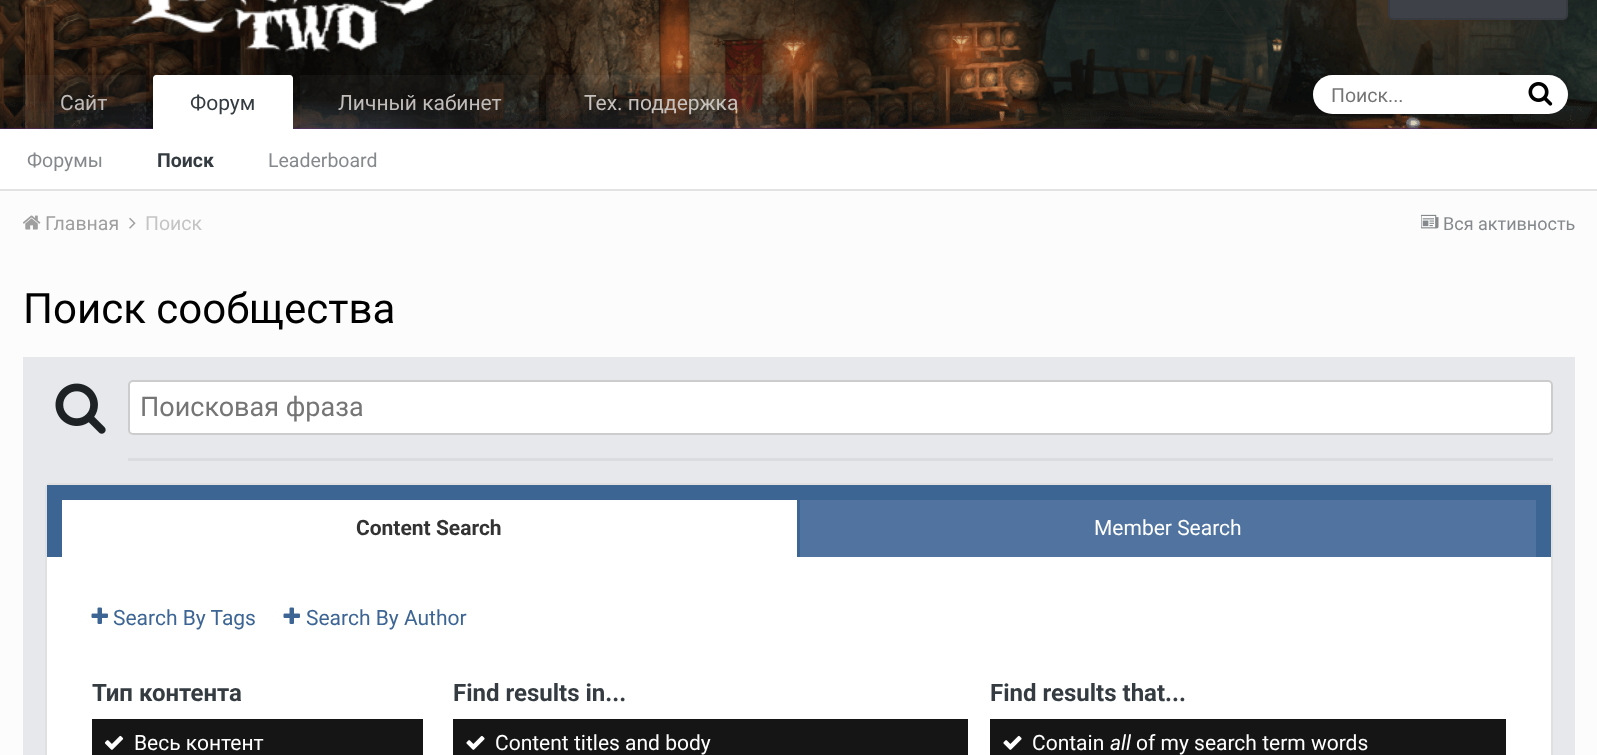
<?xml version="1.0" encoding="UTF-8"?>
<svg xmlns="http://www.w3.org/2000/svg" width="1597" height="755">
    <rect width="100%" height="100%" fill="#FCFCFC"/>
    <rect x="0" y="189" width="1597" height="2" fill="#E3E3E3"/>
    <rect x="0" y="128" width="1597" height="1" fill="#542478"/>
    <image x="0" y="0" width="1597" height="129" href="img_01.png"/>
    <image x="130" y="0" width="304" height="53" href="img_02.png"/>
    <rect x="1388" y="-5" width="180" height="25" rx="5" fill="#3E4148"/>
    <rect x="1389" y="-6" width="178" height="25" rx="4" fill="none" stroke="#000000" stroke-opacity="0.1" stroke-width="2"/>
    <rect x="0" y="129" width="1597" height="60" fill="#FFFFFF"/>
    <path d="M 156 75 H 290 C 291.5 75 293 76.5 293 78 V 129 H 153 V 78 C 153 76.5 154.5 75 156 75 Z" fill="#FFFFFF"/>
    <text x="190" y="110" font-family="Roboto" font-size="21" fill="#353C41">Форум</text>
    <text x="27" y="167" font-family="Roboto" font-size="19.5" fill="#85898C">Форумы</text>
    <text x="157" y="167" font-family="Roboto" font-size="19.5" font-weight="700" fill="#353C41">Поиск</text>
    <text x="268" y="167" font-family="Roboto" font-size="19.5" fill="#85898C">Leaderboard</text>
    <rect x="23" y="75" width="123" height="54" fill="#FFFFFF" fill-opacity="0.04"/>
    <text x="60" y="110" font-family="Roboto" font-size="21" fill="#BFBCBA">Сайт</text>
    <rect x="300" y="75" width="239" height="54" fill="#FFFFFF" fill-opacity="0.04"/>
    <text x="338" y="110" font-family="Roboto" font-size="21" fill="#BFBCBA">Личный кабинет</text>
    <rect x="546" y="75" width="230" height="54" fill="#FFFFFF" fill-opacity="0.04"/>
    <text x="584" y="110" font-family="Roboto" font-size="21" fill="#C6C1BD">Тех. поддержка</text>
    <rect x="1313" y="75" width="255" height="39" rx="19.5" fill="#FFFFFF"/>
    <text x="1331" y="102" font-family="Roboto" font-size="19.5" fill="#757575">Поиск...</text>
    <image x="1528" y="82" width="25" height="24" href="img_03.png"/>
    <image x="23" y="215" width="18" height="15" href="img_04.png"/>
    <text x="45" y="230" font-family="Roboto" font-size="19.5" fill="#9F9F9F">Главная</text>
    <image x="129" y="217" width="7" height="12" href="img_05.png"/>
    <text x="145" y="230" font-family="Roboto" font-size="19.5" fill="#C4C4C4">Поиск</text>
    <image x="1421" y="214" width="18" height="15" href="img_06.png"/>
    <text x="1443" y="230" font-family="Roboto" font-size="18" fill="#85898C">Вся активность</text>
    <text x="23" y="323" font-family="Roboto" font-size="42" fill="#000000">Поиск сообщества</text>
    <rect x="23" y="357" width="1552" height="398" fill="#E6E8EB"/>
    <image x="55" y="383" width="51" height="51" href="img_07.png"/>
    <rect x="128" y="380" width="1425" height="55" rx="5" fill="#FFFFFF"/>
    <rect x="129" y="381" width="1423" height="53" rx="4" fill="none" stroke="#000000" stroke-opacity="0.2" stroke-width="2"/>
    <text x="140" y="416" font-family="Roboto" font-size="27" fill="#757575">Поисковая фраза</text>
    <rect x="128" y="458" width="1425" height="3" fill="#DBDCDF"/>
    <rect x="46" y="484" width="1506" height="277" rx="4" fill="#FFFFFF" stroke="#E0E0E0" stroke-width="2"/>
    <rect x="47" y="485" width="1504" height="72" fill="#3D6594"/>
    <rect x="62" y="500" width="735" height="57" fill="#FFFFFF"/>
    <text x="356" y="535" font-family="Roboto" font-size="21" font-weight="700" fill="#333333">Content Search</text>
    <rect x="800" y="500" width="736" height="57" fill="#50749F"/>
    <text x="1094" y="535" font-family="Roboto" font-size="21" fill="#FFFFFF">Member Search</text>
    <image x="91" y="607" width="17" height="17" href="img_08.png"/>
    <text x="113" y="625" font-family="Roboto" font-size="21" fill="#3D6594">Search By Tags</text>
    <image x="283" y="607" width="17" height="17" href="img_08.png"/>
    <text x="306" y="625" font-family="Roboto" font-size="21" fill="#3D6594">Search By Author</text>
    <text x="92" y="701" font-family="Roboto" font-size="24" font-weight="700" fill="#353C41">Тип контента</text>
    <rect x="92" y="719" width="331" height="36" fill="#151515"/>
    <image x="104" y="735" width="20" height="15" href="img_09.png"/>
    <text x="134" y="750" font-family="Roboto" font-size="21" fill="#FFFFFF">Весь контент</text>
    <text x="453" y="701" font-family="Roboto" font-size="24" font-weight="700" fill="#353C41">Find results in...</text>
    <rect x="453" y="719" width="515" height="36" fill="#151515"/>
    <image x="466" y="735" width="19" height="15" href="img_10.png"/>
    <text x="495" y="750" font-family="Roboto" font-size="21" fill="#FFFFFF">Content titles and body</text>
    <text x="990" y="701" font-family="Roboto" font-size="24" font-weight="700" fill="#353C41">Find results that...</text>
    <rect x="990" y="719" width="516" height="36" fill="#151515"/>
    <image x="1003" y="735" width="19" height="15" href="img_10.png"/>
    <text x="1032" y="750" font-family="Roboto" font-size="21" fill="#FFFFFF">Contain</text>
    <text x="1110" y="750" font-family="Roboto" font-size="21" font-style="italic" fill="#FFFFFF">all</text>
    <text x="1136" y="750" font-family="Roboto" font-size="21" fill="#FFFFFF">of my search term words</text>
</svg>
